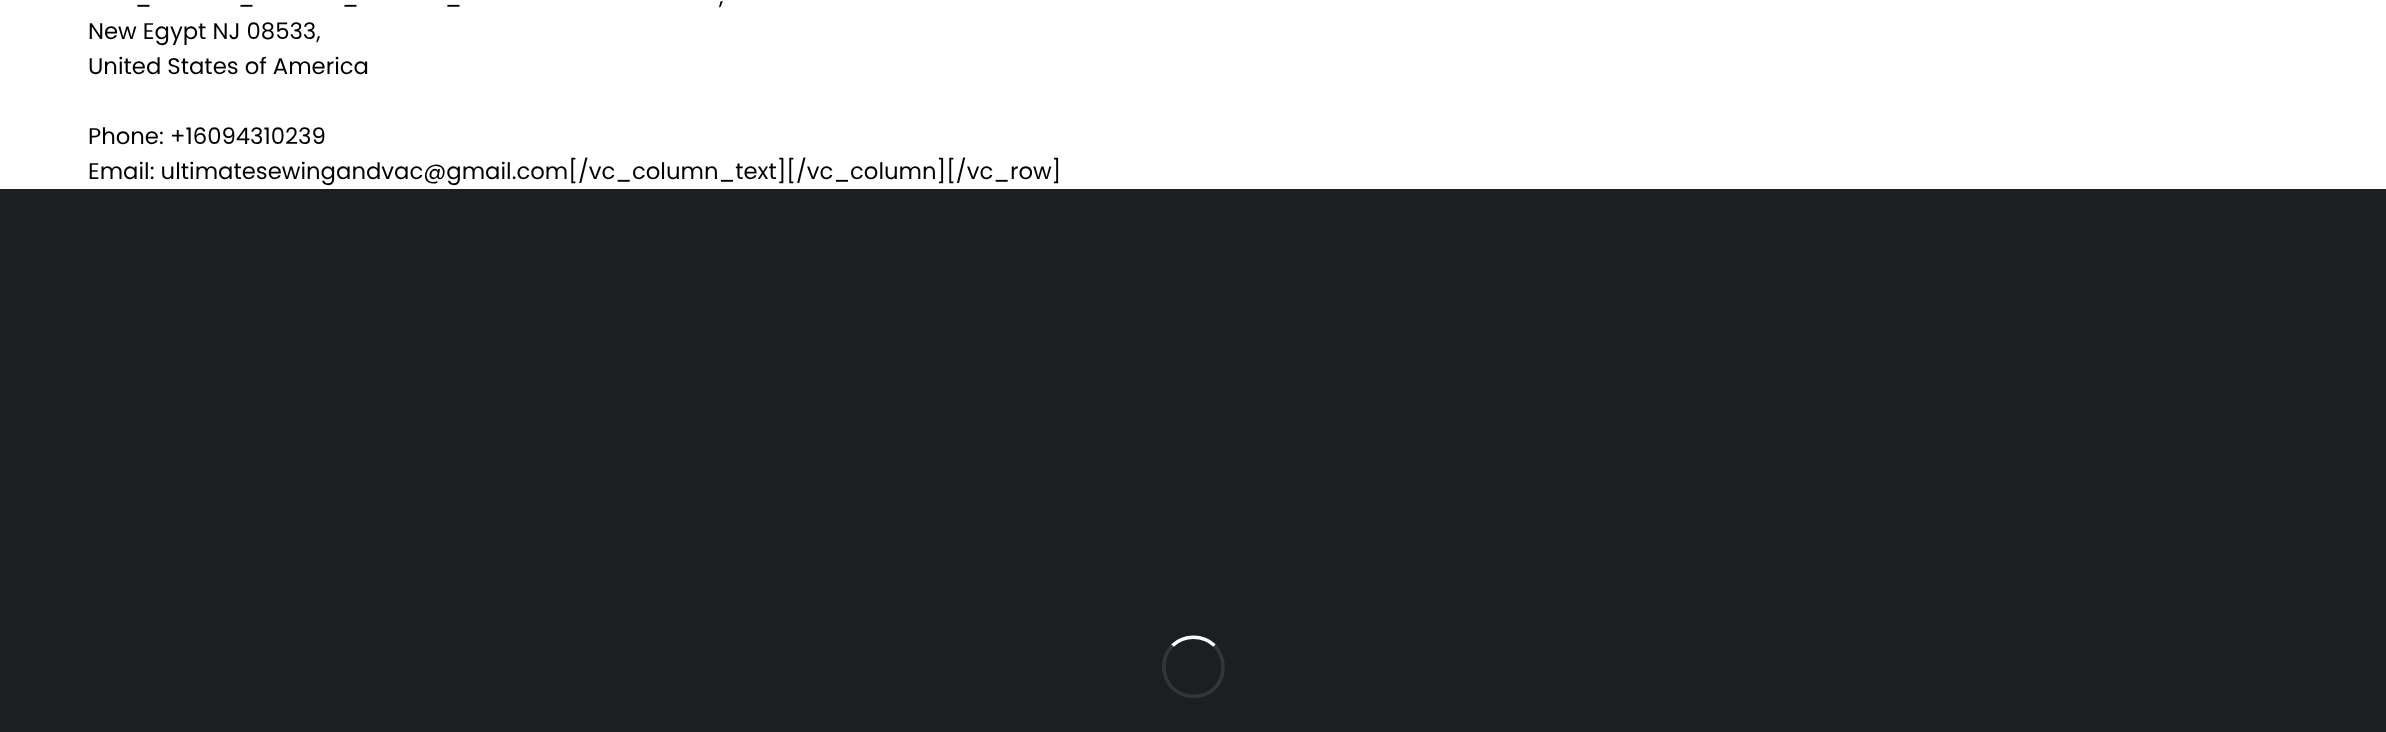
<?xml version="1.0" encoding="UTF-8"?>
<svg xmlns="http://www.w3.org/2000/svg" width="2386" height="732">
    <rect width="100%" height="100%" fill="#FFFFFF"/>
    <text x="135" y="4" font-family="Poppins" font-size="22.75" fill="#000000">_</text>
    <text x="238" y="4" font-family="Poppins" font-size="22.75" fill="#000000">_</text>
    <text x="342" y="4" font-family="Poppins" font-size="22.75" fill="#000000">_</text>
    <text x="445" y="4" font-family="Poppins" font-size="22.75" fill="#000000">_</text>
    <text x="719" y="4" font-family="Poppins" font-size="22.75" fill="#000000">,</text>
    <text font-family="Poppins" font-size="22.75" fill="#000000">
        <tspan x="88" y="39">New Egypt NJ 08533,</tspan>
        <tspan x="88" y="74">United States of America</tspan>
    </text>
    <text font-family="Poppins" font-size="22.75" fill="#000000">
        <tspan x="88" y="144">Phone: +16094310239</tspan>
        <tspan x="88" y="179">Email: ultimatesewingandvac@gmail.com[/vc_column_text][/vc_column][/vc_row]</tspan>
    </text>
    <rect x="0" y="189" width="2386" height="543" fill="#1B1F22"/>
    <path d="M 1172.5 645.5 C 1184 634.5 1203 634.5 1214.5 645.5" fill="none" stroke="#FFFFFF" stroke-width="3.5"/>
    <path d="M 1214.5 645.5 C 1220 651.5 1223 659 1223 667 C 1223.5 702.5 1171.5 707.5 1164.5 672.5 C 1162.5 663 1165.5 652.5 1172.5 645.5" fill="none" stroke="#969696" stroke-opacity="0.2" stroke-width="3.5"/>
</svg>
